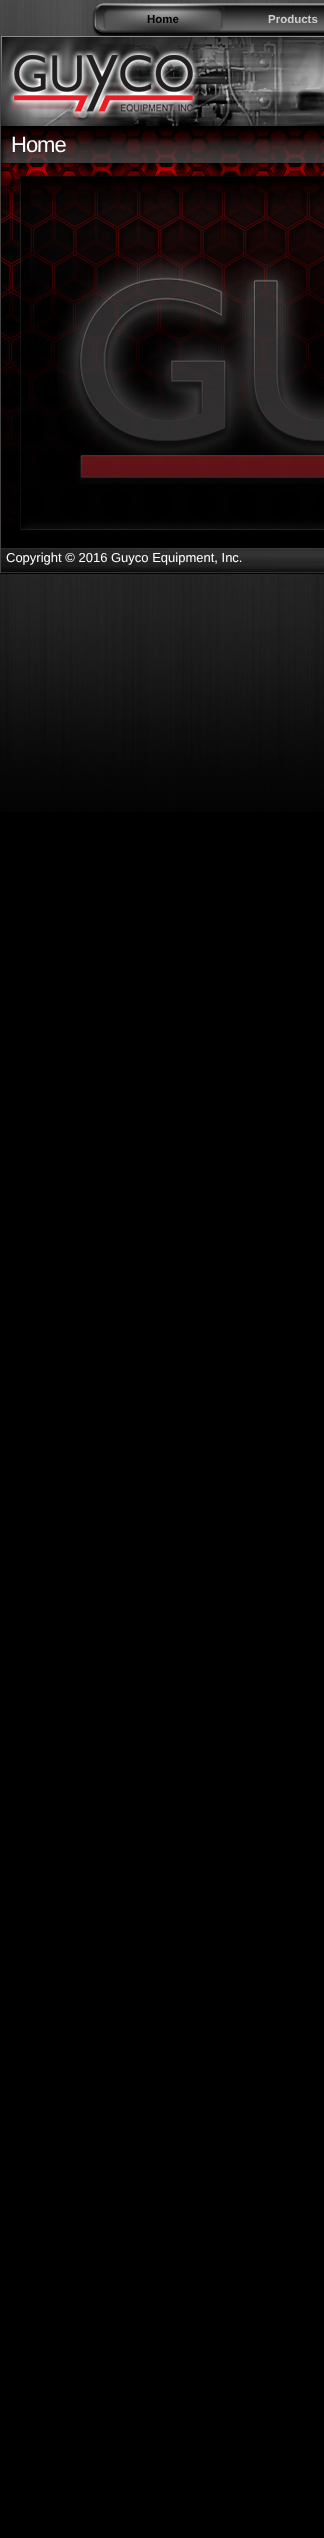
<?xml version="1.0" encoding="UTF-8"?>
<svg xmlns="http://www.w3.org/2000/svg" width="324" height="2538">
    <rect width="100%" height="100%" fill="#000000"/>
    <image x="0" y="0" width="324" height="812" href="img_01.png"/>
    <image x="92" y="3" width="232" height="33" href="img_02.png"/>
    <image x="102" y="4" width="123" height="31" href="img_03.png"/>
    <text x="147" y="23" font-family="Liberation Sans" font-size="11.5" font-weight="700" fill="#000000">Home</text>
    <text x="268" y="23" font-family="Liberation Sans" font-size="11.5" font-weight="700" fill="#CCCCCC">Products</text>
    <rect x="0" y="573" width="324" height="1" fill="#000000"/>
    <rect x="0" y="36" width="1" height="537" fill="#444444"/>
    <image x="1" y="36" width="323" height="90" href="img_04.png"/>
    <rect x="1" y="126" width="323" height="422" fill="#000000"/>
    <image x="1" y="128" width="323" height="403" href="img_05.png"/>
    <text x="11" y="152" font-family="Liberation Sans" font-size="22" letter-spacing="-1" fill="#FFFFFF">Home</text>
    <image x="57" y="254" width="267" height="230" href="img_06.png"/>
    <image x="1" y="548" width="323" height="24" href="img_07.png"/>
    <rect x="1" y="572" width="323" height="1" fill="#333333"/>
    <text x="6" y="562" font-family="Liberation Sans" font-size="13" fill="#FFFFFF">Copyright © 2016 Guyco Equipment, Inc.</text>
</svg>
